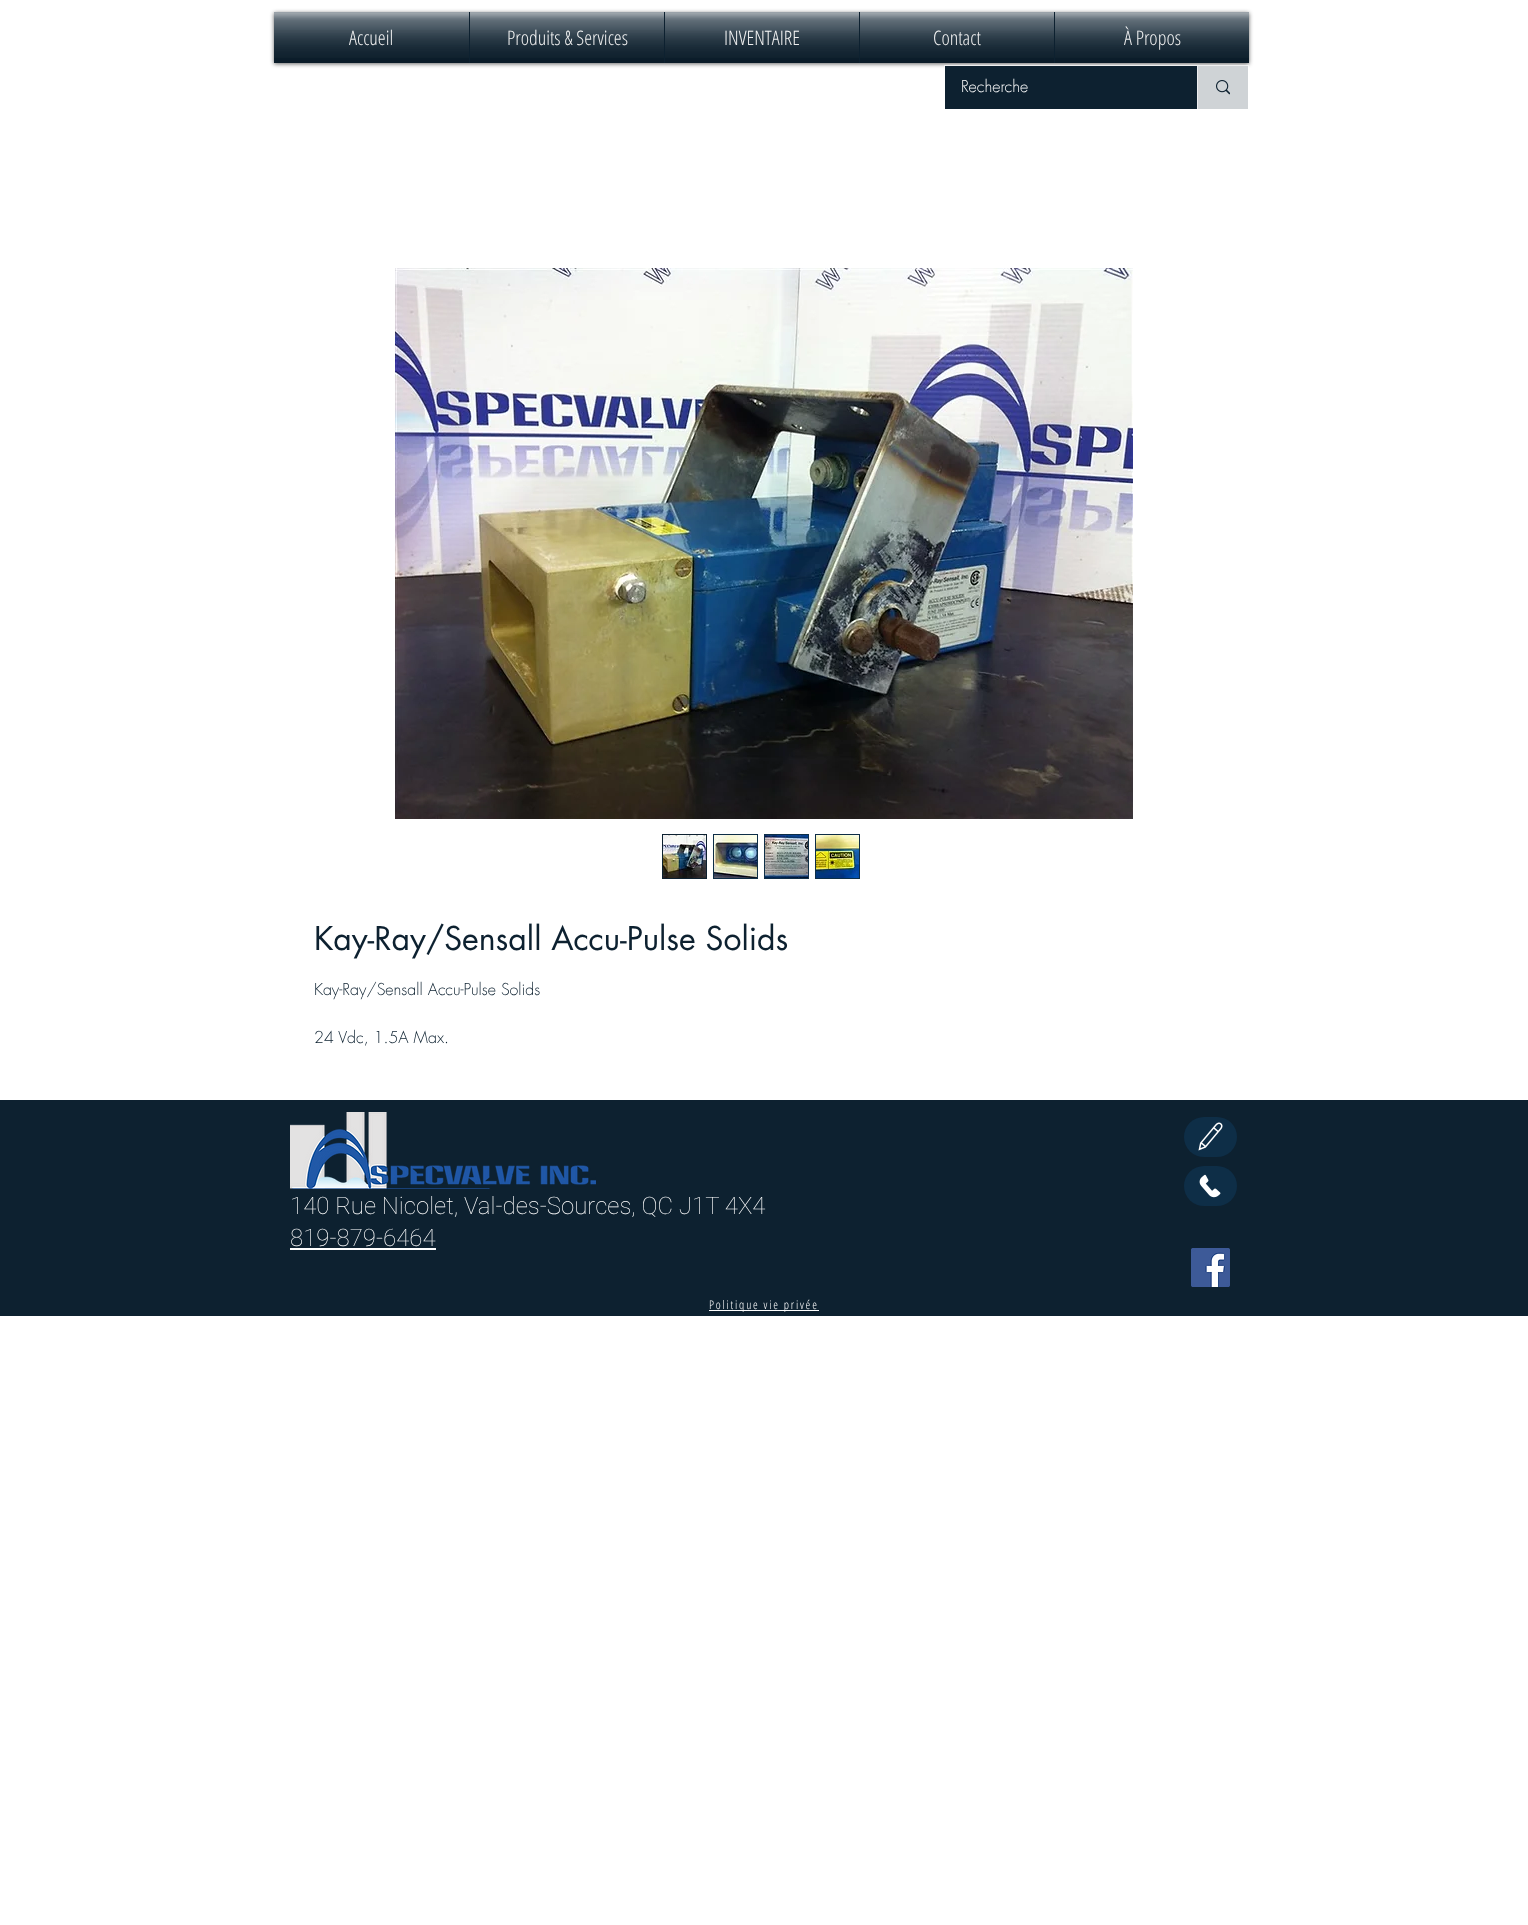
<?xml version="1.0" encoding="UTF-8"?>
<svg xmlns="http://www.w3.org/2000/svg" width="1528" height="1925">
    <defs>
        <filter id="blur1" x="-50%" y="-200%" width="200%" height="500%"><feGaussianBlur stdDeviation="2"/></filter>
    </defs>
    <rect width="100%" height="100%" fill="#FFFFFF"/>
    <rect x="274" y="13" width="975" height="51" fill="#000000" fill-opacity="0.6" filter="url(#blur1)"/>
    <rect x="274" y="12" width="975" height="51" fill="#0D2130"/>
    <text x="349" y="45" font-family="Open Sans Condensed" font-size="20" font-weight="300" fill="#FFFFFF">Accueil</text>
    <image x="274" y="12" width="195" height="46" href="img_01.png"/>
    <image x="274" y="30" width="195" height="33" href="img_02.png"/>
    <text x="507" y="45" font-family="Open Sans Condensed" font-size="20" font-weight="300" fill="#FFFFFF">Produits &amp; Services</text>
    <image x="470" y="12" width="194" height="46" href="img_03.png"/>
    <image x="470" y="30" width="194" height="33" href="img_04.png"/>
    <text x="724" y="45" font-family="Open Sans Condensed" font-size="20" font-weight="300" fill="#FFFFFF">INVENTAIRE</text>
    <image x="665" y="12" width="194" height="46" href="img_05.png"/>
    <image x="665" y="31" width="194" height="32" href="img_06.png"/>
    <text x="933" y="45" font-family="Open Sans Condensed" font-size="20" font-weight="300" fill="#FFFFFF">Contact</text>
    <image x="860" y="12" width="194" height="46" href="img_07.png"/>
    <image x="860" y="31" width="194" height="32" href="img_08.png"/>
    <text x="1124" y="45" font-family="Open Sans Condensed" font-size="20" font-weight="300" fill="#FFFFFF">À Propos</text>
    <image x="1055" y="12" width="194" height="46" href="img_09.png"/>
    <image x="1055" y="31" width="194" height="32" href="img_10.png"/>
    <rect x="944.5" y="65.5" width="304" height="44" fill="none" stroke="#FFFFFF" stroke-opacity="0.6"/>
    <rect x="945" y="66" width="252" height="43" fill="#0D2130"/>
    <text x="961" y="92" font-family="futura" font-size="16" font-weight="300" fill="#FFFFFF">Recherche</text>
    <rect x="1198" y="66" width="50" height="43" fill="#CFD3D6"/>
    <rect x="1197" y="66" width="1" height="43" fill="#ECEDEF"/>
    <image x="1216" y="80" width="14" height="15" href="img_11.png"/>
    <image x="395" y="268" width="738" height="551" href="img_12.png"/>
    <rect x="662.5" y="834.5" width="44" height="44" fill="none" stroke="#0D2130"/>
    <image x="663" y="835" width="43" height="43" href="img_13.png"/>
    <rect x="713.5" y="834.5" width="44" height="44" fill="none" stroke="#0E2E47"/>
    <image x="714" y="835" width="43" height="43" href="img_14.png"/>
    <rect x="764.5" y="834.5" width="44" height="44" fill="none" stroke="#0E2E47"/>
    <image x="765" y="835" width="43" height="43" href="img_15.png"/>
    <rect x="815.5" y="834.5" width="44" height="44" fill="none" stroke="#0E2E47"/>
    <image x="816" y="835" width="43" height="43" href="img_16.png"/>
    <text x="314" y="950" font-family="futura" font-size="32" fill="#0D2130">Kay-Ray/Sensall Accu-Pulse Solids</text>
    <text x="314" y="995" font-family="futura" font-size="16" font-weight="300" fill="#0D2130">Kay-Ray/Sensall Accu-Pulse Solids</text>
    <text x="314" y="1043" font-family="futura" font-size="16" font-weight="300" fill="#0D2130">24 Vdc, 1.5A Max.</text>
    <rect x="0" y="1100" width="1528" height="216" fill="#0D2130"/>
    <image x="290" y="1112" width="306" height="77" href="img_17.png"/>
    <rect x="1184" y="1117" width="53" height="40" rx="20" fill="#0E2E47"/>
    <image x="1198" y="1122" width="25" height="29" href="img_18.png"/>
    <rect x="1184" y="1166" width="53" height="40" rx="20" fill="#0E2E47"/>
    <image x="1199" y="1174" width="22" height="24" href="img_19.png"/>
    <text font-family="Roboto" font-size="24" font-weight="100" fill="#FFFFFF">
        <tspan x="290" y="1214">140 Rue Nicolet, Val-des-Sources, QC J1T 4X4</tspan>
        <tspan x="290" y="1246">819-879-6464</tspan>
    </text>
    <rect x="290" y="1248" width="146" height="2" fill="#FFFFFF"/>
    <image x="1191" y="1248" width="39" height="39" href="img_20.png"/>
    <rect x="709" y="1310" width="110" height="1" fill="#FFFFFF"/>
    <text x="709" y="1309" font-family="Open Sans Condensed" font-size="12" font-weight="300" letter-spacing="1.8" fill="#FFFFFF">Politique vie privée</text>
</svg>
